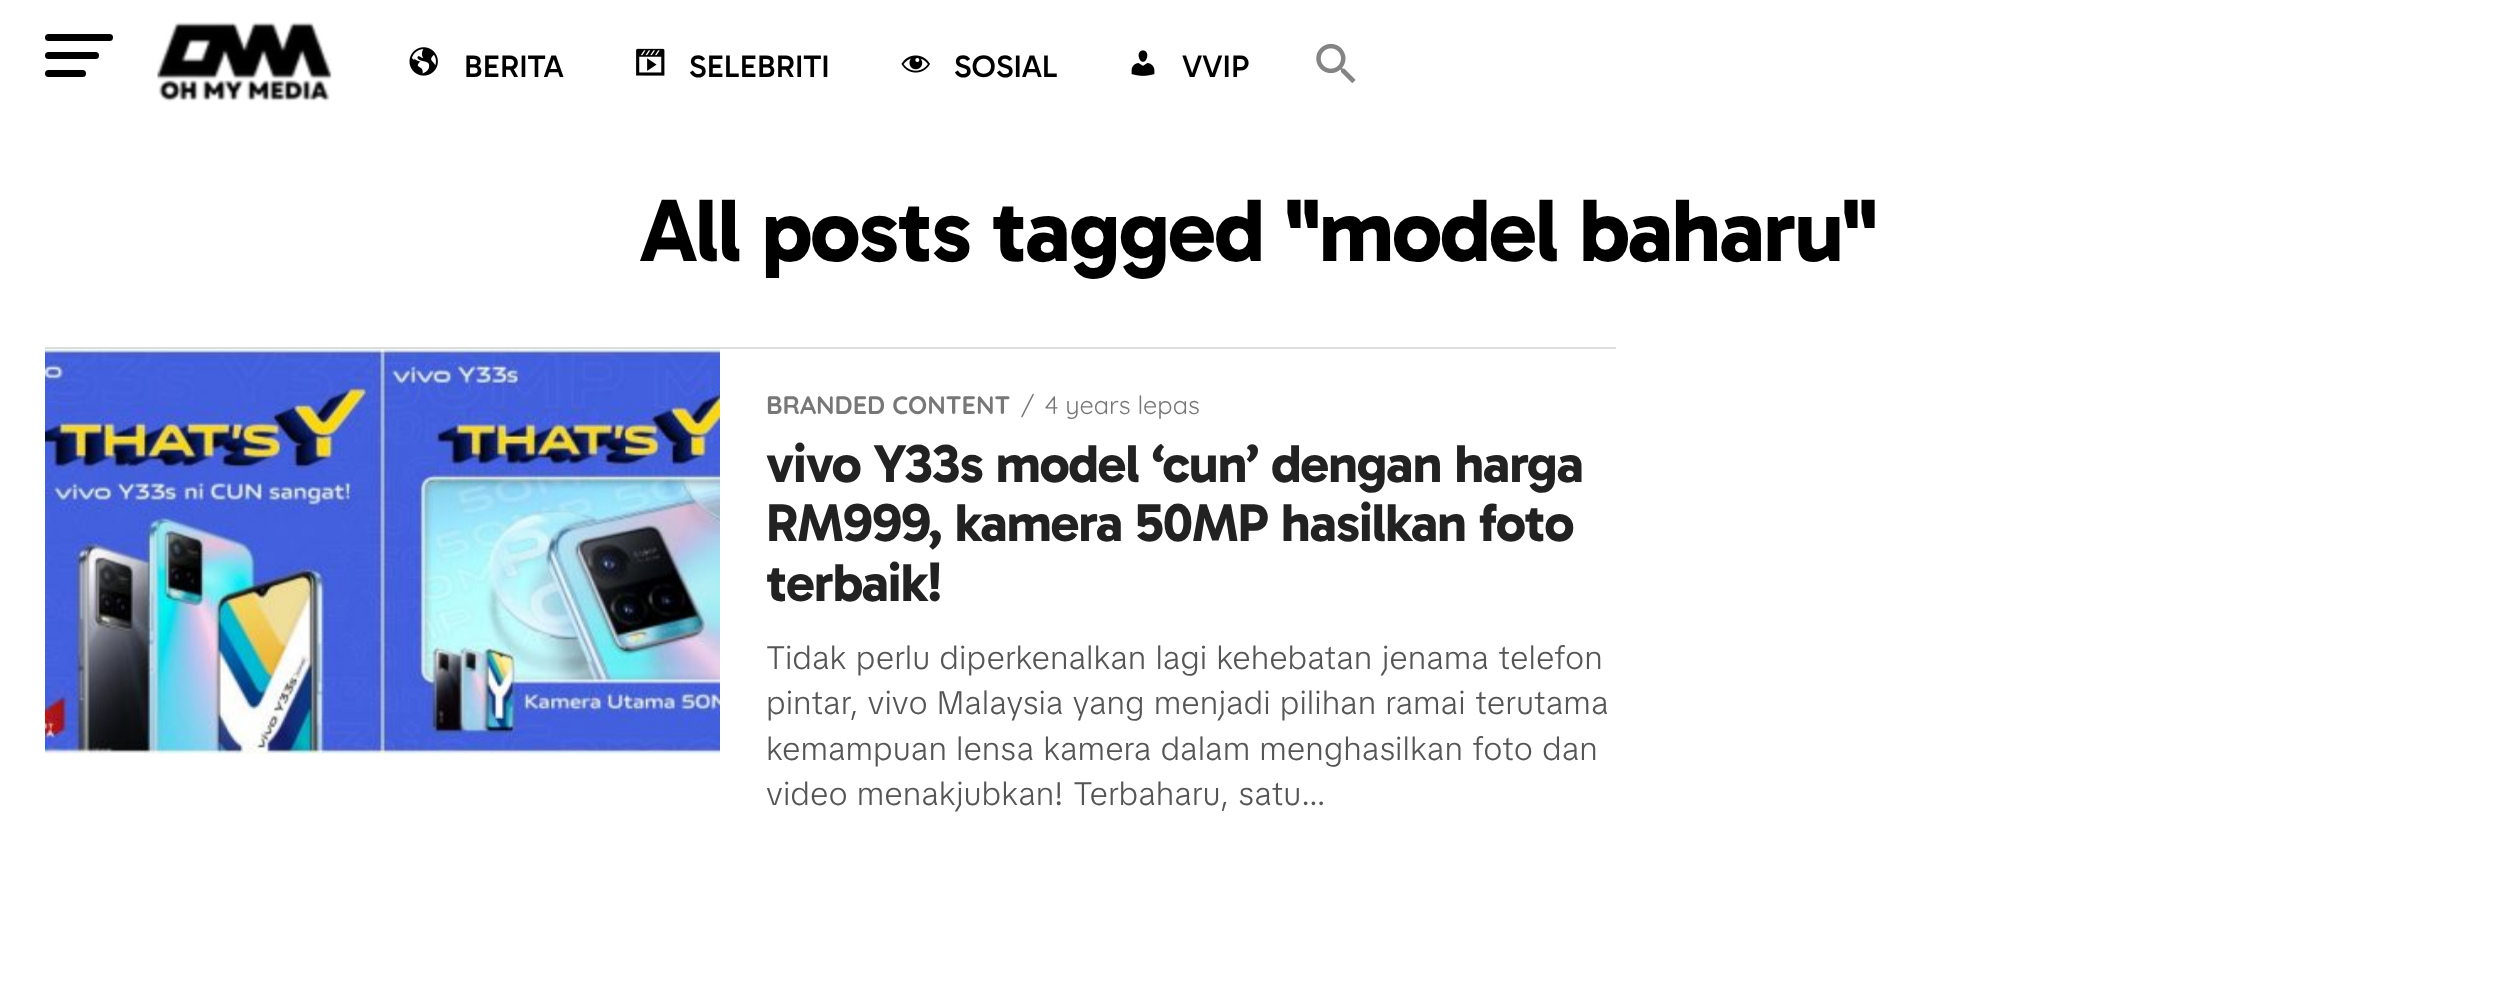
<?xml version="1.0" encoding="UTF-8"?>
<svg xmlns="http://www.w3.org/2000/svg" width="2514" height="998">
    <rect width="100%" height="100%" fill="#FFFFFF"/>
    <rect x="45" y="34" width="68" height="7" rx="3.5" fill="#000000"/>
    <rect x="45" y="52" width="54" height="7" rx="3.5" fill="#000000"/>
    <rect x="45" y="70" width="41" height="7" rx="3.5" fill="#000000"/>
    <image x="157" y="22" width="175" height="80" href="img_01.png"/>
    <image x="409" y="47" width="29" height="29" href="img_02.png"/>
    <text x="464" y="77" font-family="Gabarito" font-size="31.5" font-weight="500" fill="#000000">BERITA</text>
    <image x="636" y="48" width="29" height="28" href="img_03.png"/>
    <text x="689" y="77" font-family="Gabarito" font-size="31.5" font-weight="500" fill="#000000">SELEBRITI</text>
    <image x="901" y="55" width="29" height="18" href="img_04.png"/>
    <text x="954" y="77" font-family="Gabarito" font-size="31.5" font-weight="500" fill="#000000">SOSIAL</text>
    <image x="1131" y="50" width="24" height="26" href="img_05.png"/>
    <text x="1182" y="77" font-family="Gabarito" font-size="31.5" font-weight="500" fill="#000000">VVIP</text>
    <image x="1316" y="43" width="40" height="41" href="img_06.png"/>
    <text x="639" y="261" font-family="Gabarito" font-size="90" font-weight="700" letter-spacing="-1.8" fill="#000000">All posts tagged "model baharu"</text>
    <rect x="45" y="347" width="1571" height="2" fill="#DDDDDD"/>
    <image x="45" y="349" width="675" height="405" href="img_07.png"/>
    <text x="766" y="414" font-family="Quicksand" font-size="25.25" font-weight="700" fill="#777777">BRANDED CONTENT</text>
    <text x="1021" y="414" font-family="Quicksand" font-size="25.25" fill="#777777">/</text>
    <text x="1045" y="414" font-family="Quicksand" font-size="25.25" fill="#777777">4 years lepas</text>
    <text font-family="Gabarito" font-size="54" font-weight="700" letter-spacing="-1.1" fill="#222222">
        <tspan x="766" y="482">vivo Y33s model ‘cun’ dengan harga</tspan>
        <tspan x="766" y="541">RM999, kamera 50MP hasilkan foto</tspan>
        <tspan x="766" y="601">terbaik!</tspan>
    </text>
    <text font-family="TikTok Sans" font-size="32.4" font-weight="300" fill="#555555">
        <tspan x="766" y="669">Tidak perlu diperkenalkan lagi kehebatan jenama telefon</tspan>
        <tspan x="766" y="714">pintar, vivo Malaysia yang menjadi pilihan ramai terutama</tspan>
        <tspan x="766" y="760">kemampuan lensa kamera dalam menghasilkan foto dan</tspan>
        <tspan x="766" y="805">video menakjubkan! Terbaharu, satu...</tspan>
    </text>
</svg>
